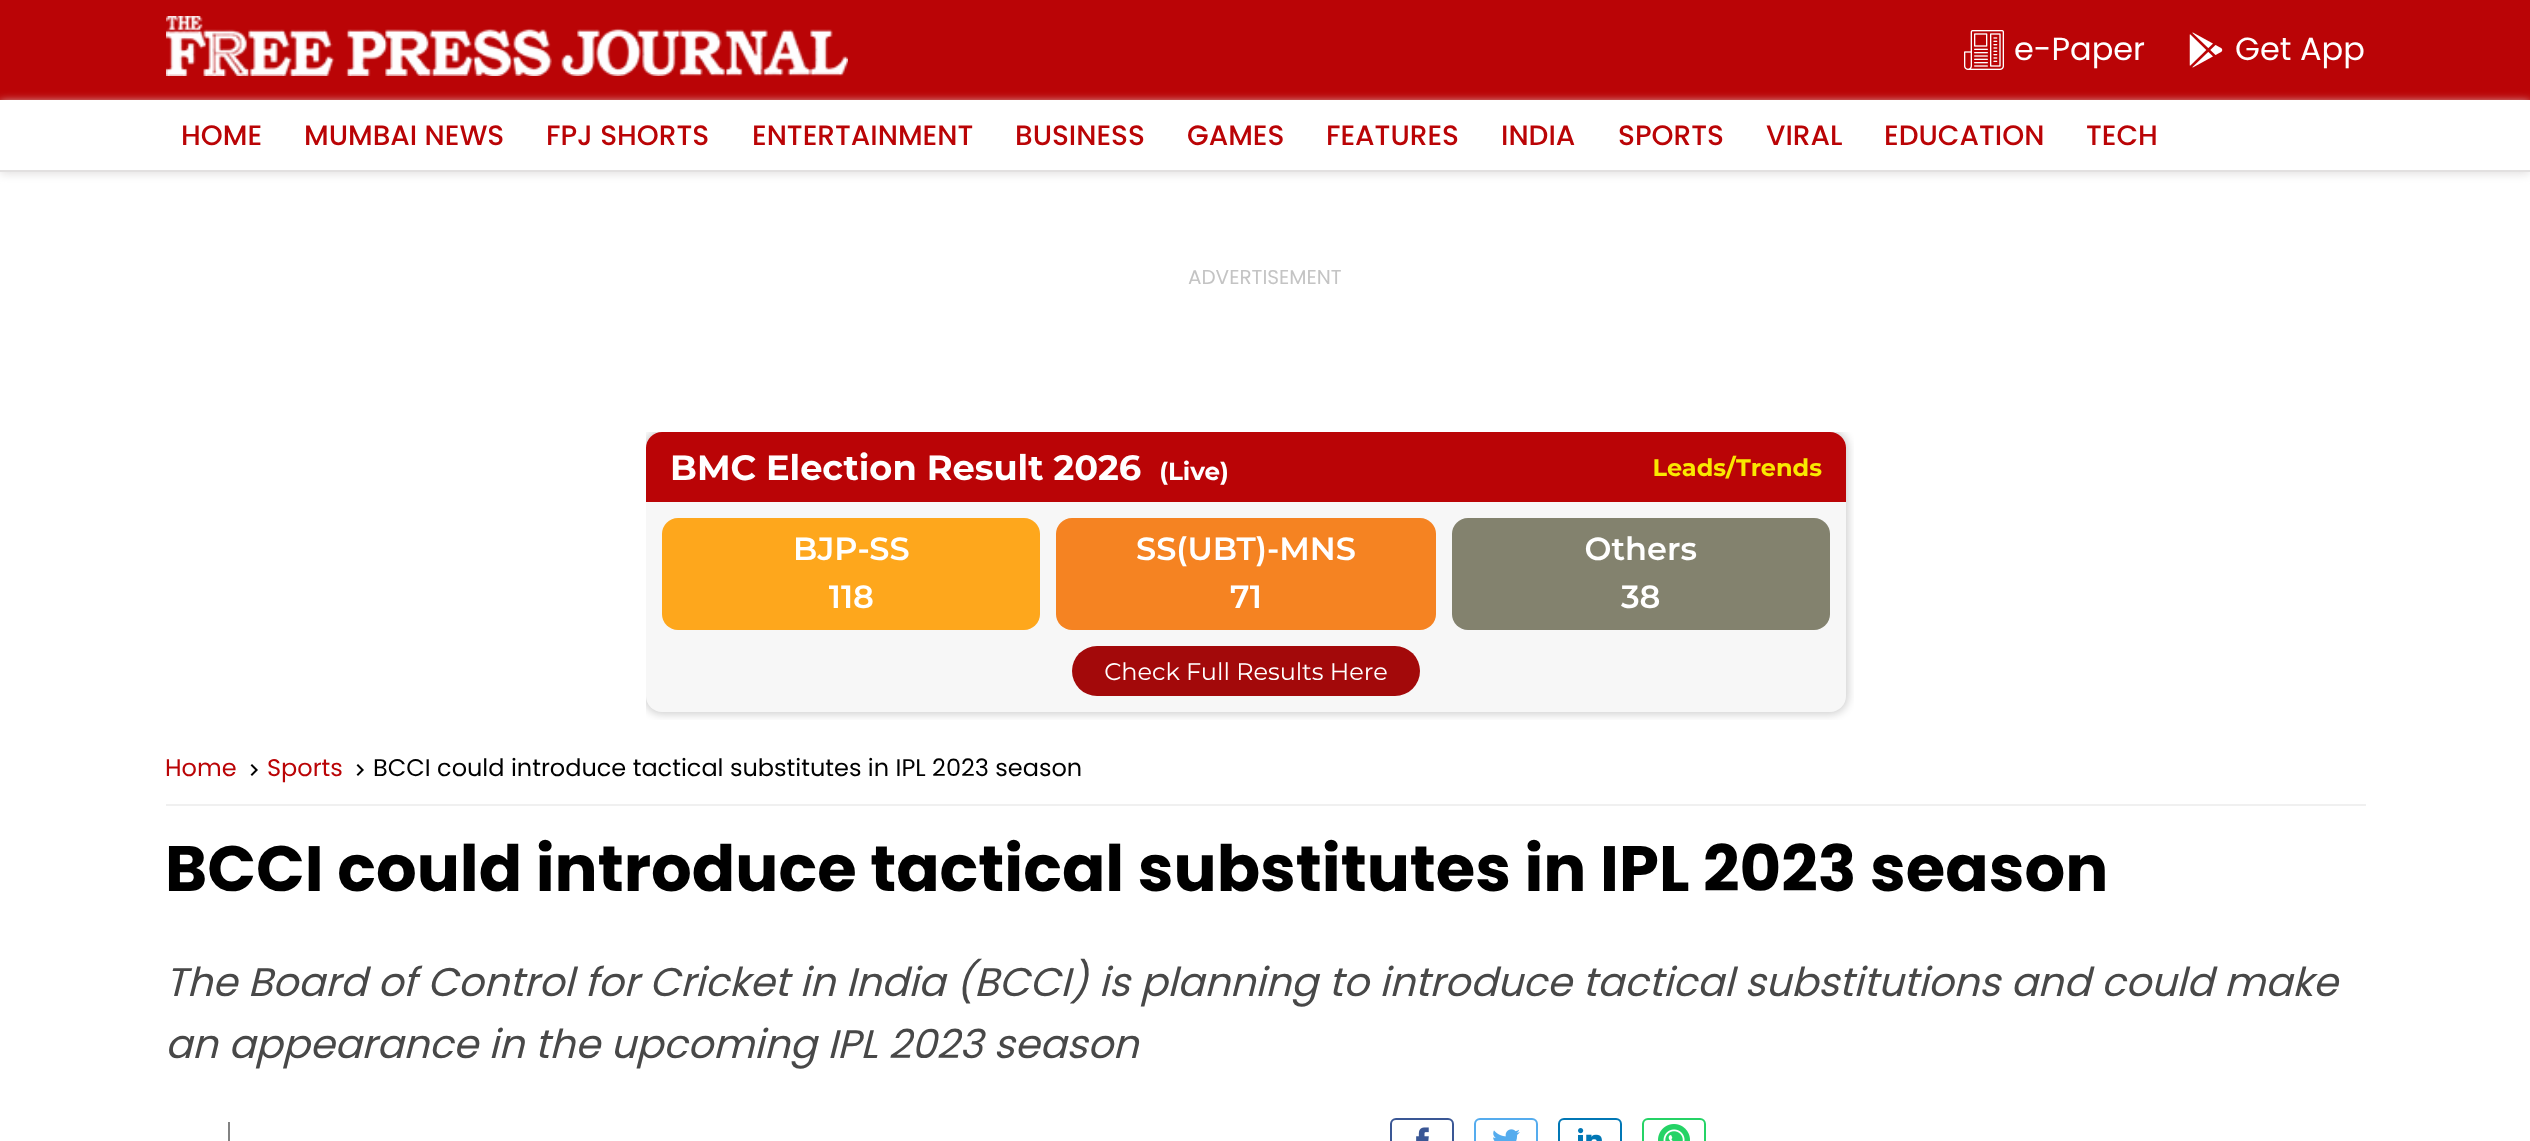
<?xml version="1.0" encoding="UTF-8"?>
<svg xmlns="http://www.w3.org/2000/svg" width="2530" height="1141">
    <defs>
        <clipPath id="clip1"><path d="M 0 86 H 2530 V 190 H 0 Z M 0 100 H 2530 V 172 H 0 Z" clip-rule="evenodd"/></clipPath>
        <filter id="blur1" x="-50%" y="-200%" width="200%" height="500%"><feGaussianBlur stdDeviation="5"/></filter>
    </defs>
    <rect width="100%" height="100%" fill="#FFFFFF"/>
    <rect x="0" y="0" width="2530" height="100" fill="#BA0406"/>
    <image x="166" y="16" width="682" height="60" href="img_01.png"/>
    <image x="1964" y="30" width="40" height="40" href="img_02.png"/>
    <text x="2014" y="60" font-family="Poppins" font-size="32" fill="#FFFFFF">e-Paper</text>
    <image x="2189" y="32" width="34" height="36" href="img_03.png"/>
    <text x="2235" y="60" font-family="Poppins" font-size="32" fill="#FFFFFF">Get App</text>
    <g clip-path="url(#clip1)">
        <rect x="0" y="102" width="2530" height="72" fill="#E2E0E0" filter="url(#blur1)"/>
    </g>
    <rect x="0" y="170" width="2530" height="2" fill="#E2E0E0"/>
    <text x="181" y="145" font-family="Poppins" font-size="28" font-weight="500" fill="#BA0406">HOME</text>
    <text x="304" y="145" font-family="Poppins" font-size="28" font-weight="500" fill="#BA0406">MUMBAI NEWS</text>
    <text x="546" y="145" font-family="Poppins" font-size="28" font-weight="500" fill="#BA0406">FPJ SHORTS</text>
    <text x="752" y="145" font-family="Poppins" font-size="28" font-weight="500" fill="#BA0406">ENTERTAINMENT</text>
    <text x="1015" y="145" font-family="Poppins" font-size="28" font-weight="500" fill="#BA0406">BUSINESS</text>
    <text x="1187" y="145" font-family="Poppins" font-size="28" font-weight="500" fill="#BA0406">GAMES</text>
    <text x="1326" y="145" font-family="Poppins" font-size="28" font-weight="500" fill="#BA0406">FEATURES</text>
    <text x="1501" y="145" font-family="Poppins" font-size="28" font-weight="500" fill="#BA0406">INDIA</text>
    <text x="1618" y="145" font-family="Poppins" font-size="28" font-weight="500" fill="#BA0406">SPORTS</text>
    <text x="1766" y="145" font-family="Poppins" font-size="28" font-weight="500" fill="#BA0406">VIRAL</text>
    <text x="1884" y="145" font-family="Poppins" font-size="28" font-weight="500" fill="#BA0406">EDUCATION</text>
    <text x="2086" y="145" font-family="Poppins" font-size="28" font-weight="500" fill="#BA0406">TECH</text>
    <text x="1188" y="284" font-family="Poppins" font-size="20" fill="#C4C4C4">ADVERTISEMENT</text>
    <image x="646" y="432" width="1208" height="288" href="img_04.png"/>
    <rect x="166" y="804" width="2200" height="2" fill="#F0F0F0"/>
    <image x="250" y="764" width="8" height="12" href="img_05.png"/>
    <text x="165" y="776" font-family="Poppins" font-size="24" fill="#BA0406">Home</text>
    <image x="356" y="764" width="8" height="12" href="img_05.png"/>
    <text x="267" y="776" font-family="Poppins" font-size="24" fill="#BA0406">Sports</text>
    <text x="373" y="776" font-family="Poppins" font-size="24" fill="#000000">BCCI could introduce tactical substitutes in IPL 2023 season</text>
    <text x="165" y="891" font-family="Poppins" font-size="64" font-weight="700" fill="#000000">BCCI could introduce tactical substitutes in IPL 2023 season</text>
    <text font-family="Poppins" font-size="40" font-style="italic" fill="#484848">
        <tspan x="165" y="996">The Board of Control for Cricket in India (BCCI) is planning to introduce tactical substitutions and could make</tspan>
        <tspan x="165" y="1058">an appearance in the upcoming IPL 2023 season</tspan>
    </text>
    <rect x="228" y="1122" width="2" height="19" fill="#828282"/>
    <image x="1416" y="1127" width="13" height="14" href="img_06.png"/>
    <rect x="1391" y="1119" width="62" height="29" rx="5" fill="none" stroke="#3A5795" stroke-width="2"/>
    <image x="1493" y="1129" width="27" height="12" href="img_07.png"/>
    <rect x="1475" y="1119" width="62" height="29" rx="5" fill="none" stroke="#55ACEE" stroke-width="2"/>
    <image x="1578" y="1128" width="24" height="13" href="img_08.png"/>
    <rect x="1559" y="1119" width="62" height="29" rx="5" fill="none" stroke="#0177B5" stroke-width="2"/>
    <image x="1658" y="1124" width="32" height="17" href="img_09.png"/>
    <rect x="1643" y="1119" width="62" height="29" rx="5" fill="none" stroke="#25D366" stroke-width="2"/>
</svg>
